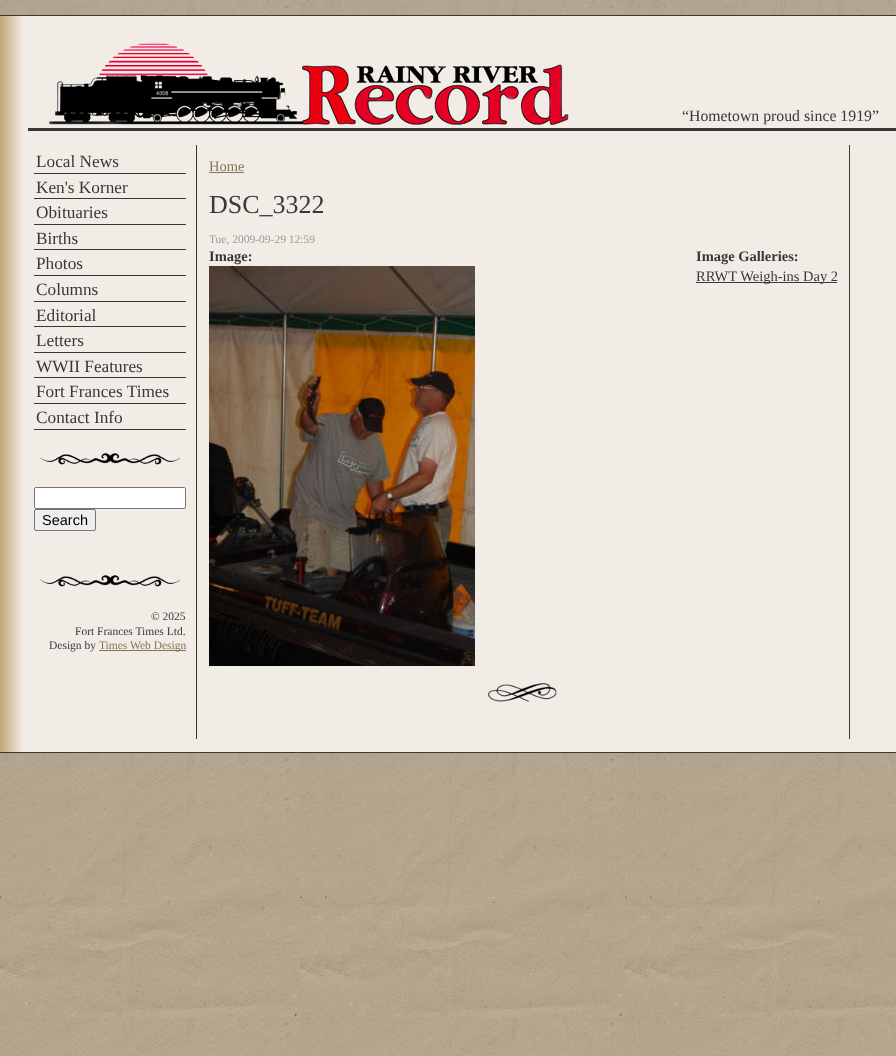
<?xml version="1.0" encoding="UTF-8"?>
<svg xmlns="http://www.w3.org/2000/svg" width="896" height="1056">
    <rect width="100%" height="100%" fill="#FFFFFF"/>
    <image x="0" y="0" width="896" height="1056" href="img_01.png"/>
    <rect x="22" y="16" width="874" height="736" fill="#F1ECE6"/>
    <rect x="0" y="15" width="896" height="1" fill="#3A3737"/>
    <rect x="0" y="752" width="896" height="1" fill="#3A3737"/>
    <image x="0" y="16" width="22" height="736" href="img_02.png"/>
    <rect x="28" y="128" width="868" height="3" fill="#3A3737"/>
    <image x="49" y="42" width="520" height="84" href="img_03.png"/>
    <text x="682" y="121" font-family="Liberation Serif" font-size="15.8" fill="#3A3737">“Hometown proud since 1919”</text>
    <rect x="196" y="145" width="1" height="594" fill="#3A3737"/>
    <rect x="34" y="173" width="152" height="1" fill="#3A3737"/>
    <text x="36" y="167" font-family="Liberation Serif" font-size="17.25" fill="#3A3737">Local News</text>
    <rect x="34" y="198" width="152" height="1" fill="#3A3737"/>
    <text x="36" y="193" font-family="Liberation Serif" font-size="17.25" fill="#3A3737">Ken's Korner</text>
    <rect x="34" y="224" width="152" height="1" fill="#3A3737"/>
    <text x="36" y="218" font-family="Liberation Serif" font-size="17.25" fill="#3A3737">Obituaries</text>
    <rect x="34" y="249" width="152" height="1" fill="#3A3737"/>
    <text x="36" y="244" font-family="Liberation Serif" font-size="17.25" fill="#3A3737">Births</text>
    <rect x="34" y="275" width="152" height="1" fill="#3A3737"/>
    <text x="36" y="269" font-family="Liberation Serif" font-size="17.25" fill="#3A3737">Photos</text>
    <rect x="34" y="301" width="152" height="1" fill="#3A3737"/>
    <text x="36" y="295" font-family="Liberation Serif" font-size="17.25" fill="#3A3737">Columns</text>
    <rect x="34" y="326" width="152" height="1" fill="#3A3737"/>
    <text x="36" y="321" font-family="Liberation Serif" font-size="17.25" fill="#3A3737">Editorial</text>
    <rect x="34" y="352" width="152" height="1" fill="#3A3737"/>
    <text x="36" y="346" font-family="Liberation Serif" font-size="17.25" fill="#3A3737">Letters</text>
    <rect x="34" y="377" width="152" height="1" fill="#3A3737"/>
    <text x="36" y="372" font-family="Liberation Serif" font-size="17.25" fill="#3A3737">WWII Features</text>
    <rect x="34" y="403" width="152" height="1" fill="#3A3737"/>
    <text x="36" y="397" font-family="Liberation Serif" font-size="17.25" fill="#3A3737">Fort Frances Times</text>
    <rect x="34" y="429" width="152" height="1" fill="#3A3737"/>
    <text x="36" y="423" font-family="Liberation Serif" font-size="17.25" fill="#3A3737">Contact Info</text>
    <image x="40" y="453" width="140" height="12" href="img_04.png"/>
    <rect x="34.5" y="487.5" width="151" height="21" rx="1.5" fill="#FFFFFF" stroke="#767676"/>
    <rect x="34.5" y="509.5" width="61" height="21" rx="1.5" fill="#EFEFEF" stroke="#767676"/>
    <text x="42" y="525" font-family="Liberation Sans" font-size="14.5" fill="#000000">Search</text>
    <image x="40" y="575" width="140" height="12" href="img_04.png"/>
    <text x="151" y="620" font-family="Liberation Serif" font-size="11.5" fill="#3A3737">© 2025</text>
    <text x="75" y="635" font-family="Liberation Serif" font-size="11.5" fill="#3A3737">Fort Frances Times Ltd.</text>
    <text x="49" y="649" font-family="Liberation Serif" font-size="11.5" fill="#3A3737">Design by</text>
    <rect x="99" y="650" width="87" height="1" fill="#887355"/>
    <text x="99" y="649" font-family="Liberation Serif" font-size="11.5" fill="#887355">Times Web Design</text>
    <text x="209" y="171" font-family="Liberation Serif" font-size="14.5" fill="#887355">Home</text>
    <rect x="209" y="172" width="35" height="1" fill="#887355"/>
    <text x="209" y="213" font-family="Liberation Serif" font-size="26" fill="#3A3737">DSC_3322</text>
    <image x="488" y="683" width="69" height="19" href="img_05.png"/>
    <text x="209" y="243" font-family="Liberation Serif" font-size="11.5" fill="#999999">Tue, 2009-09-29 12:59</text>
    <text x="209" y="261" font-family="Liberation Serif" font-size="14.5" font-weight="700" fill="#3A3737">Image:</text>
    <image x="209" y="266" width="266" height="400" href="img_06.png"/>
    <text x="696" y="261" font-family="Liberation Serif" font-size="14.5" font-weight="700" fill="#3A3737">Image Galleries:</text>
    <rect x="696" y="282" width="141" height="1" fill="#3A3737"/>
    <text x="696" y="281" font-family="Liberation Serif" font-size="14.5" fill="#3A3737">RRWT Weigh-ins Day 2</text>
    <rect x="849" y="145" width="1" height="594" fill="#3A3737"/>
</svg>
